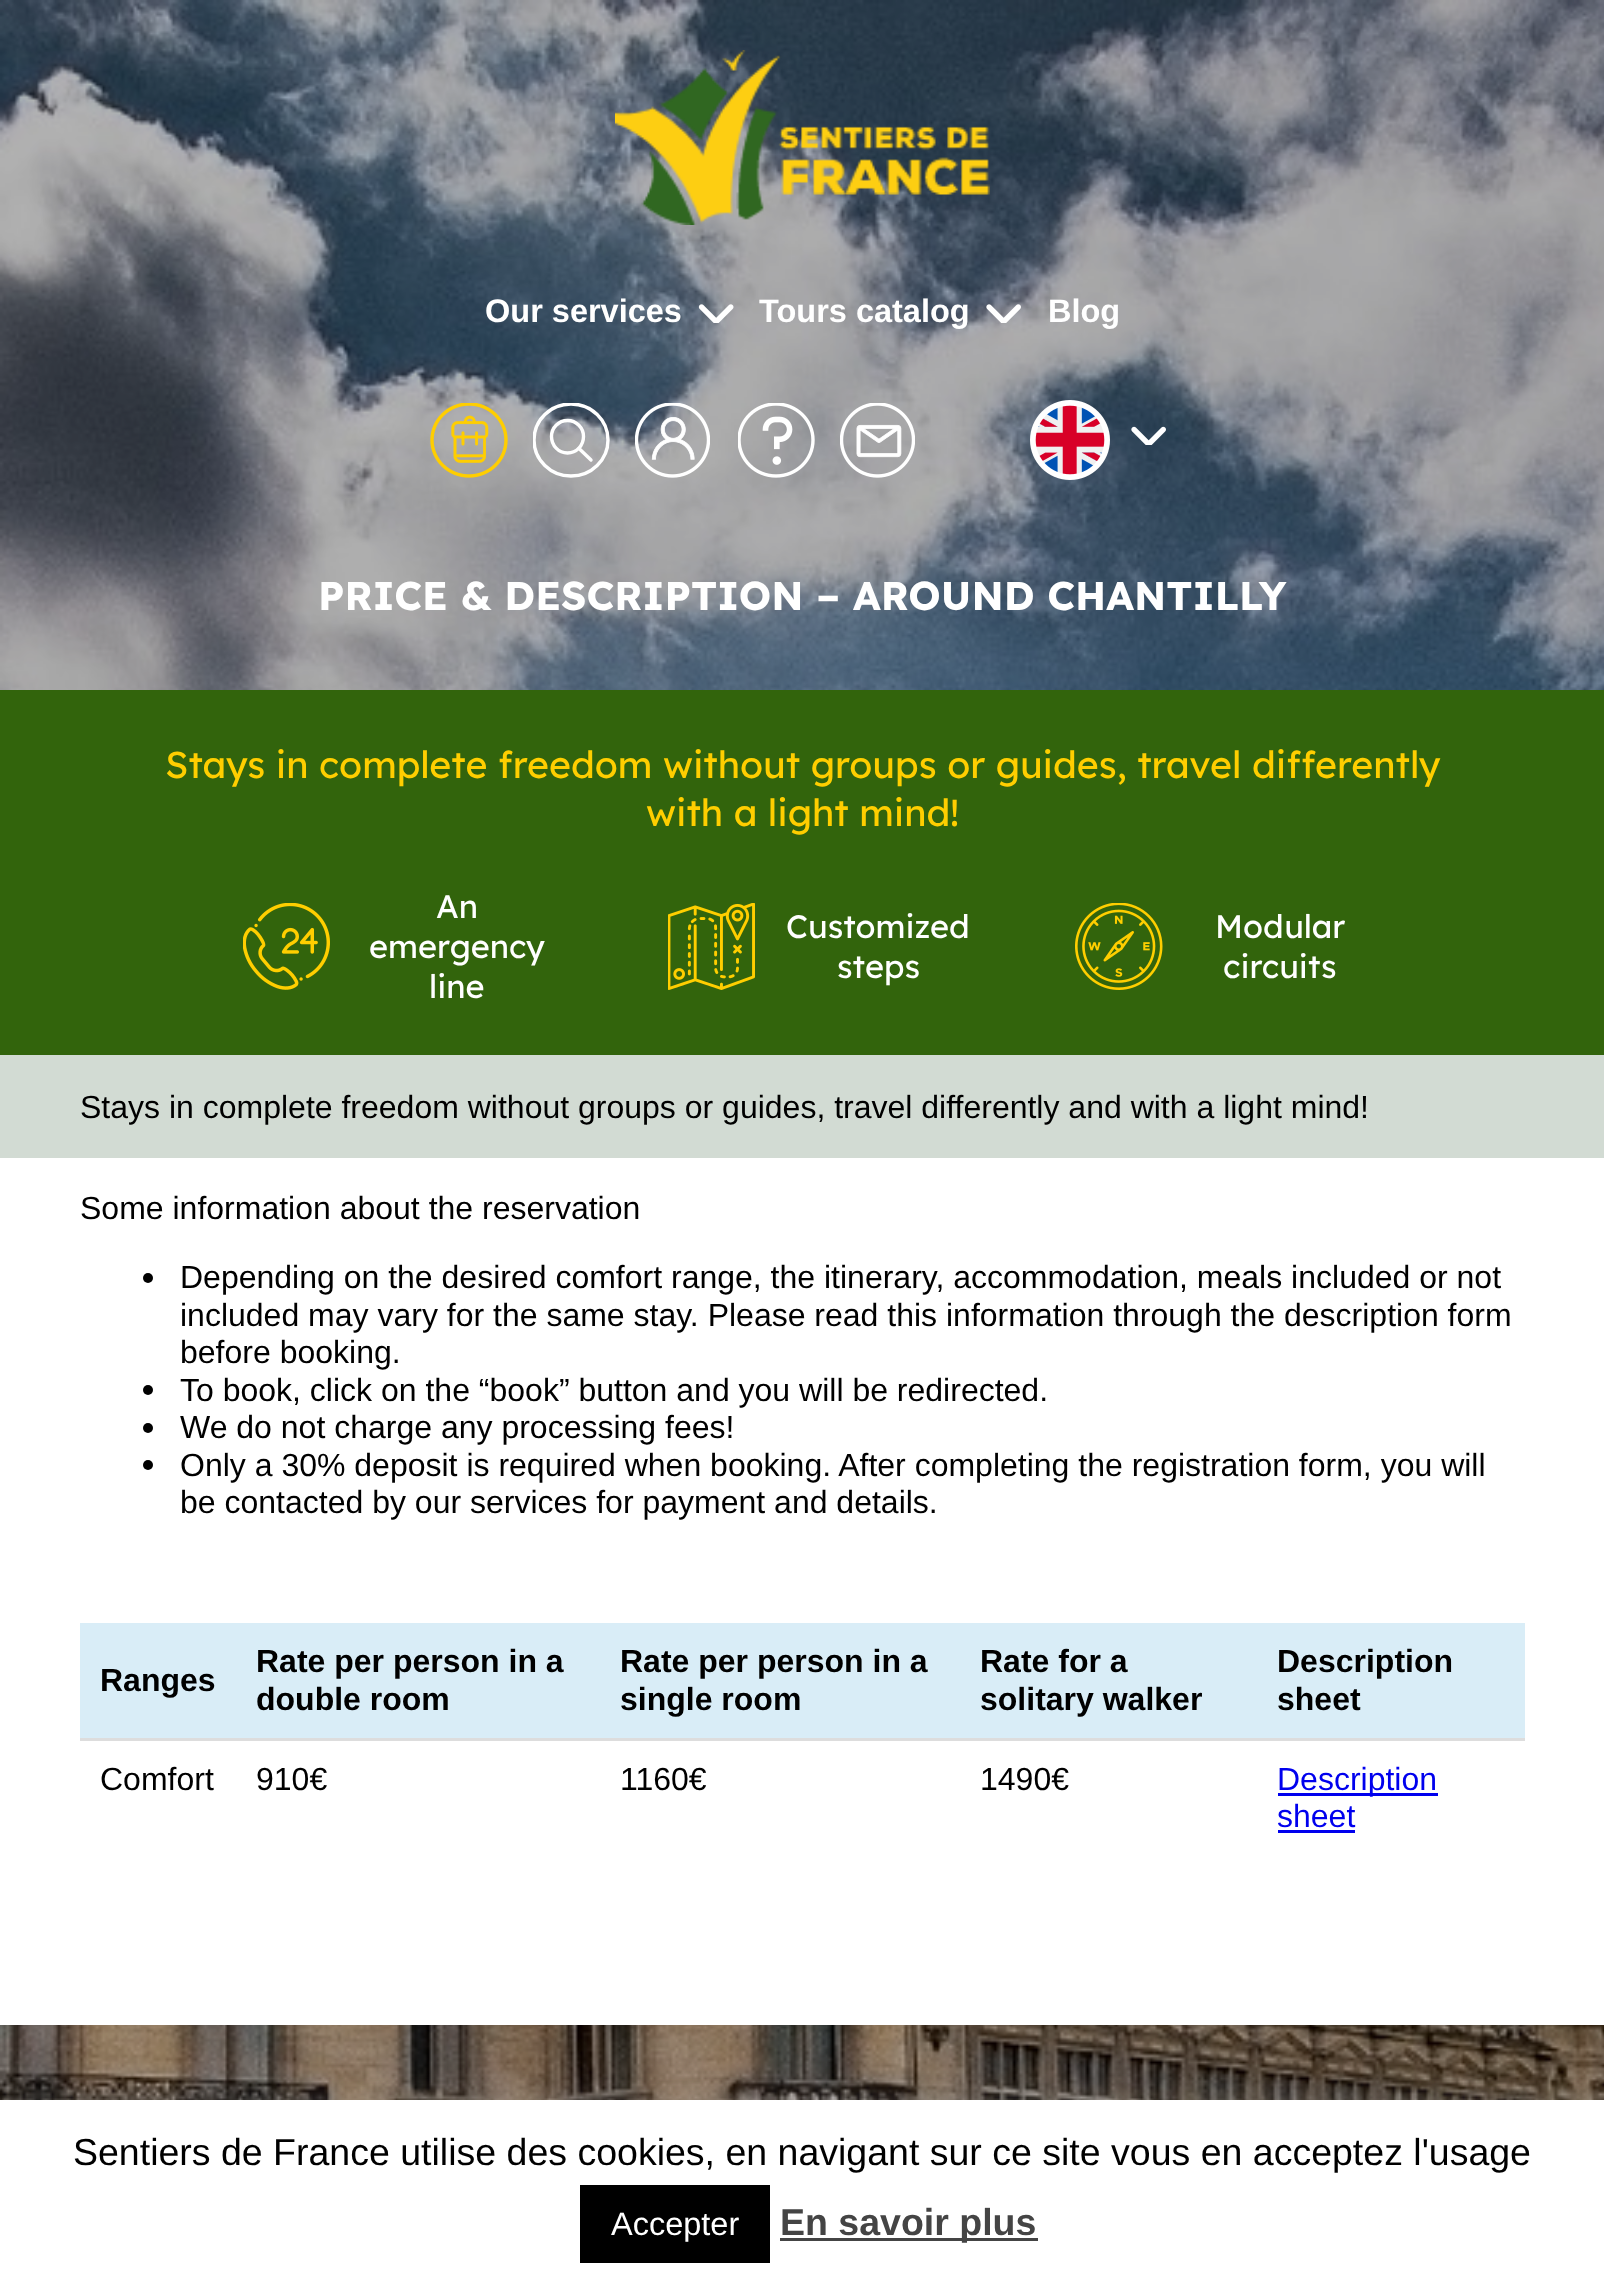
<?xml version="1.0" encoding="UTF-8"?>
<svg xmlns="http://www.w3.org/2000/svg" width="1604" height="2292">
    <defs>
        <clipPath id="clip1"><rect x="533" y="403" width="77" height="75"/></clipPath>
        <filter id="blur1" x="-50%" y="-200%" width="200%" height="500%"><feGaussianBlur stdDeviation="12.5"/></filter>
    </defs>
    <rect width="100%" height="100%" fill="#FFFFFF"/>
    <image x="0" y="0" width="1604" height="2100" href="img_01.png"/>
    <image x="615" y="50" width="375" height="175" href="img_02.png"/>
    <text x="485" y="322" font-family="Liberation Sans" font-size="32.5" font-weight="700" fill="#FFFFFF">Our services</text>
    <image x="698" y="304" width="36" height="19" href="img_03.png"/>
    <text x="759" y="322" font-family="Liberation Sans" font-size="32.5" font-weight="700" fill="#FFFFFF">Tours catalog</text>
    <image x="986" y="304" width="35" height="19" href="img_04.png"/>
    <text x="1048" y="322" font-family="Liberation Sans" font-size="32.5" font-weight="700" fill="#FFFFFF">Blog</text>
    <image x="430" y="403" width="78" height="75" href="img_05.png"/>
    <g clip-path="url(#clip1)">
        <ellipse cx="571" cy="440" rx="37" ry="36" fill="none" stroke="#FFFFFF" stroke-width="3.4"/>
    </g>
    <path d="M 567.5 420.5 C 558.5 420.5 551.5 428 551.5 436.5 C 551.5 445.5 558.5 453 567.5 453 C 576.5 453 583.5 445.5 583.5 436.5 C 583.5 428 576.5 420.5 567.5 420.5 Z" fill="none" stroke="#FFFFFF" stroke-width="3.4"/>
    <path d="M 579 448.5 L 591 460" fill="none" stroke="#FFFFFF" stroke-width="3.4" stroke-linecap="round"/>
    <image x="635" y="403" width="75" height="75" href="img_06.png"/>
    <image x="738" y="403" width="77" height="75" href="img_07.png"/>
    <image x="840" y="403" width="75" height="75" href="img_08.png"/>
    <image x="1030" y="400" width="80" height="80" href="img_09.png"/>
    <image x="1131" y="426" width="35" height="19" href="img_10.png"/>
    <text x="318" y="610" font-family="Lexend" font-size="40" font-weight="700" fill="#FFFFFF">PRICE &amp; DESCRIPTION – AROUND CHANTILLY</text>
    <rect x="0" y="690" width="1604" height="365" fill="#32640C"/>
    <text x="165" y="778" font-family="Lexend" font-size="37.5" fill="#FFCE00">Stays in complete freedom without groups or guides, travel differently</text>
    <text x="646" y="826" font-family="Lexend" font-size="37.5" fill="#FFCE00">with a light mind!</text>
    <image x="243" y="903" width="87" height="87" href="img_11.png"/>
    <text x="436" y="918" font-family="Lexend" font-size="32.5" fill="#FFFFFF">An</text>
    <text x="369" y="958" font-family="Lexend" font-size="32.5" fill="#FFFFFF">emergency</text>
    <text x="429" y="998" font-family="Lexend" font-size="32.5" fill="#FFFFFF">line</text>
    <image x="668" y="903" width="87" height="87" href="img_12.png"/>
    <text x="786" y="938" font-family="Lexend" font-size="32.5" fill="#FFFFFF">Customized</text>
    <text x="837" y="978" font-family="Lexend" font-size="32.5" fill="#FFFFFF">steps</text>
    <image x="1075" y="903" width="88" height="87" href="img_13.png"/>
    <text x="1215" y="938" font-family="Lexend" font-size="32.5" fill="#FFFFFF">Modular</text>
    <text x="1223" y="978" font-family="Lexend" font-size="32.5" fill="#FFFFFF">circuits</text>
    <rect x="0" y="1055" width="1604" height="103" fill="#D2DBD3"/>
    <text x="80" y="1118" font-family="Liberation Sans" font-size="32" fill="#000000">Stays in complete freedom without groups or guides, travel differently and with a light mind!</text>
    <rect x="0" y="1158" width="1604" height="867" fill="#FFFFFF"/>
    <text x="80" y="1219" font-family="Liberation Sans" font-size="32" fill="#000000">Some information about the reservation</text>
    <circle cx="148" cy="1278" r="5" fill="#000000"/>
    <text font-family="Liberation Sans" font-size="32" fill="#000000">
        <tspan x="180" y="1288">Depending on the desired comfort range, the itinerary, accommodation, meals included or not</tspan>
        <tspan x="180" y="1326">included may vary for the same stay. Please read this information through the description form</tspan>
        <tspan x="180" y="1363">before booking.</tspan>
    </text>
    <circle cx="148" cy="1390" r="5" fill="#000000"/>
    <text x="180" y="1401" font-family="Liberation Sans" font-size="32" fill="#000000">To book, click on the “book” button and you will be redirected.</text>
    <circle cx="148" cy="1428" r="5" fill="#000000"/>
    <text x="180" y="1438" font-family="Liberation Sans" font-size="32" fill="#000000">We do not charge any processing fees!</text>
    <circle cx="148" cy="1465" r="5" fill="#000000"/>
    <text font-family="Liberation Sans" font-size="32" fill="#000000">
        <tspan x="180" y="1476">Only a 30% deposit is required when booking. After completing the registration form, you will</tspan>
        <tspan x="180" y="1513">be contacted by our services for payment and details.</tspan>
    </text>
    <rect x="80" y="1623" width="1445" height="115" fill="#D9EDF7"/>
    <text x="100" y="1691" font-family="Liberation Sans" font-size="32" font-weight="700" fill="#000000">Ranges</text>
    <text font-family="Liberation Sans" font-size="32" font-weight="700" fill="#000000">
        <tspan x="256" y="1672">Rate per person in a</tspan>
        <tspan x="256" y="1710">double room</tspan>
    </text>
    <text font-family="Liberation Sans" font-size="32" font-weight="700" fill="#000000">
        <tspan x="620" y="1672">Rate per person in a</tspan>
        <tspan x="620" y="1710">single room</tspan>
    </text>
    <text font-family="Liberation Sans" font-size="32" font-weight="700" fill="#000000">
        <tspan x="980" y="1672">Rate for a</tspan>
        <tspan x="980" y="1710">solitary walker</tspan>
    </text>
    <rect x="80" y="1738" width="1445" height="3" fill="#DDDDDD"/>
    <text font-family="Liberation Sans" font-size="32" font-weight="700" fill="#000000">
        <tspan x="1277" y="1672">Description</tspan>
        <tspan x="1277" y="1710">sheet</tspan>
    </text>
    <text x="100" y="1790" font-family="Liberation Sans" font-size="32" fill="#000000">Comfort</text>
    <text x="256" y="1790" font-family="Liberation Sans" font-size="32" fill="#000000">910€</text>
    <text x="620" y="1790" font-family="Liberation Sans" font-size="32" fill="#000000">1160€</text>
    <text x="980" y="1790" font-family="Liberation Sans" font-size="32" fill="#000000">1490€</text>
    <rect x="1278" y="1793" width="160" height="3" fill="#0000EE"/>
    <text font-family="Liberation Sans" font-size="32" fill="#0000EE">
        <tspan x="1277" y="1790">Description</tspan>
        <tspan x="1277" y="1827">sheet</tspan>
    </text>
    <rect x="1278" y="1830" width="77" height="3" fill="#0000EE"/>
    <rect x="0" y="2098" width="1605" height="192" fill="#ACABAB" fill-opacity="0.3" filter="url(#blur1)"/>
    <rect x="0" y="2100" width="1604" height="192" fill="#FFFFFF"/>
    <text x="73" y="2165" font-family="Liberation Sans" font-size="37.5" fill="#000000">Sentiers de France utilise des cookies, en navigant sur ce site vous en acceptez l'usage</text>
    <rect x="580" y="2185" width="190" height="78" fill="#000000"/>
    <text x="611" y="2235" font-family="Liberation Sans" font-size="32.5" fill="#FFFFFF">Accepter</text>
    <rect x="780" y="2238" width="258" height="3" fill="#444444"/>
    <text x="780" y="2235" font-family="Liberation Sans" font-size="37.5" font-weight="700" fill="#444444">En savoir plus</text>
</svg>
